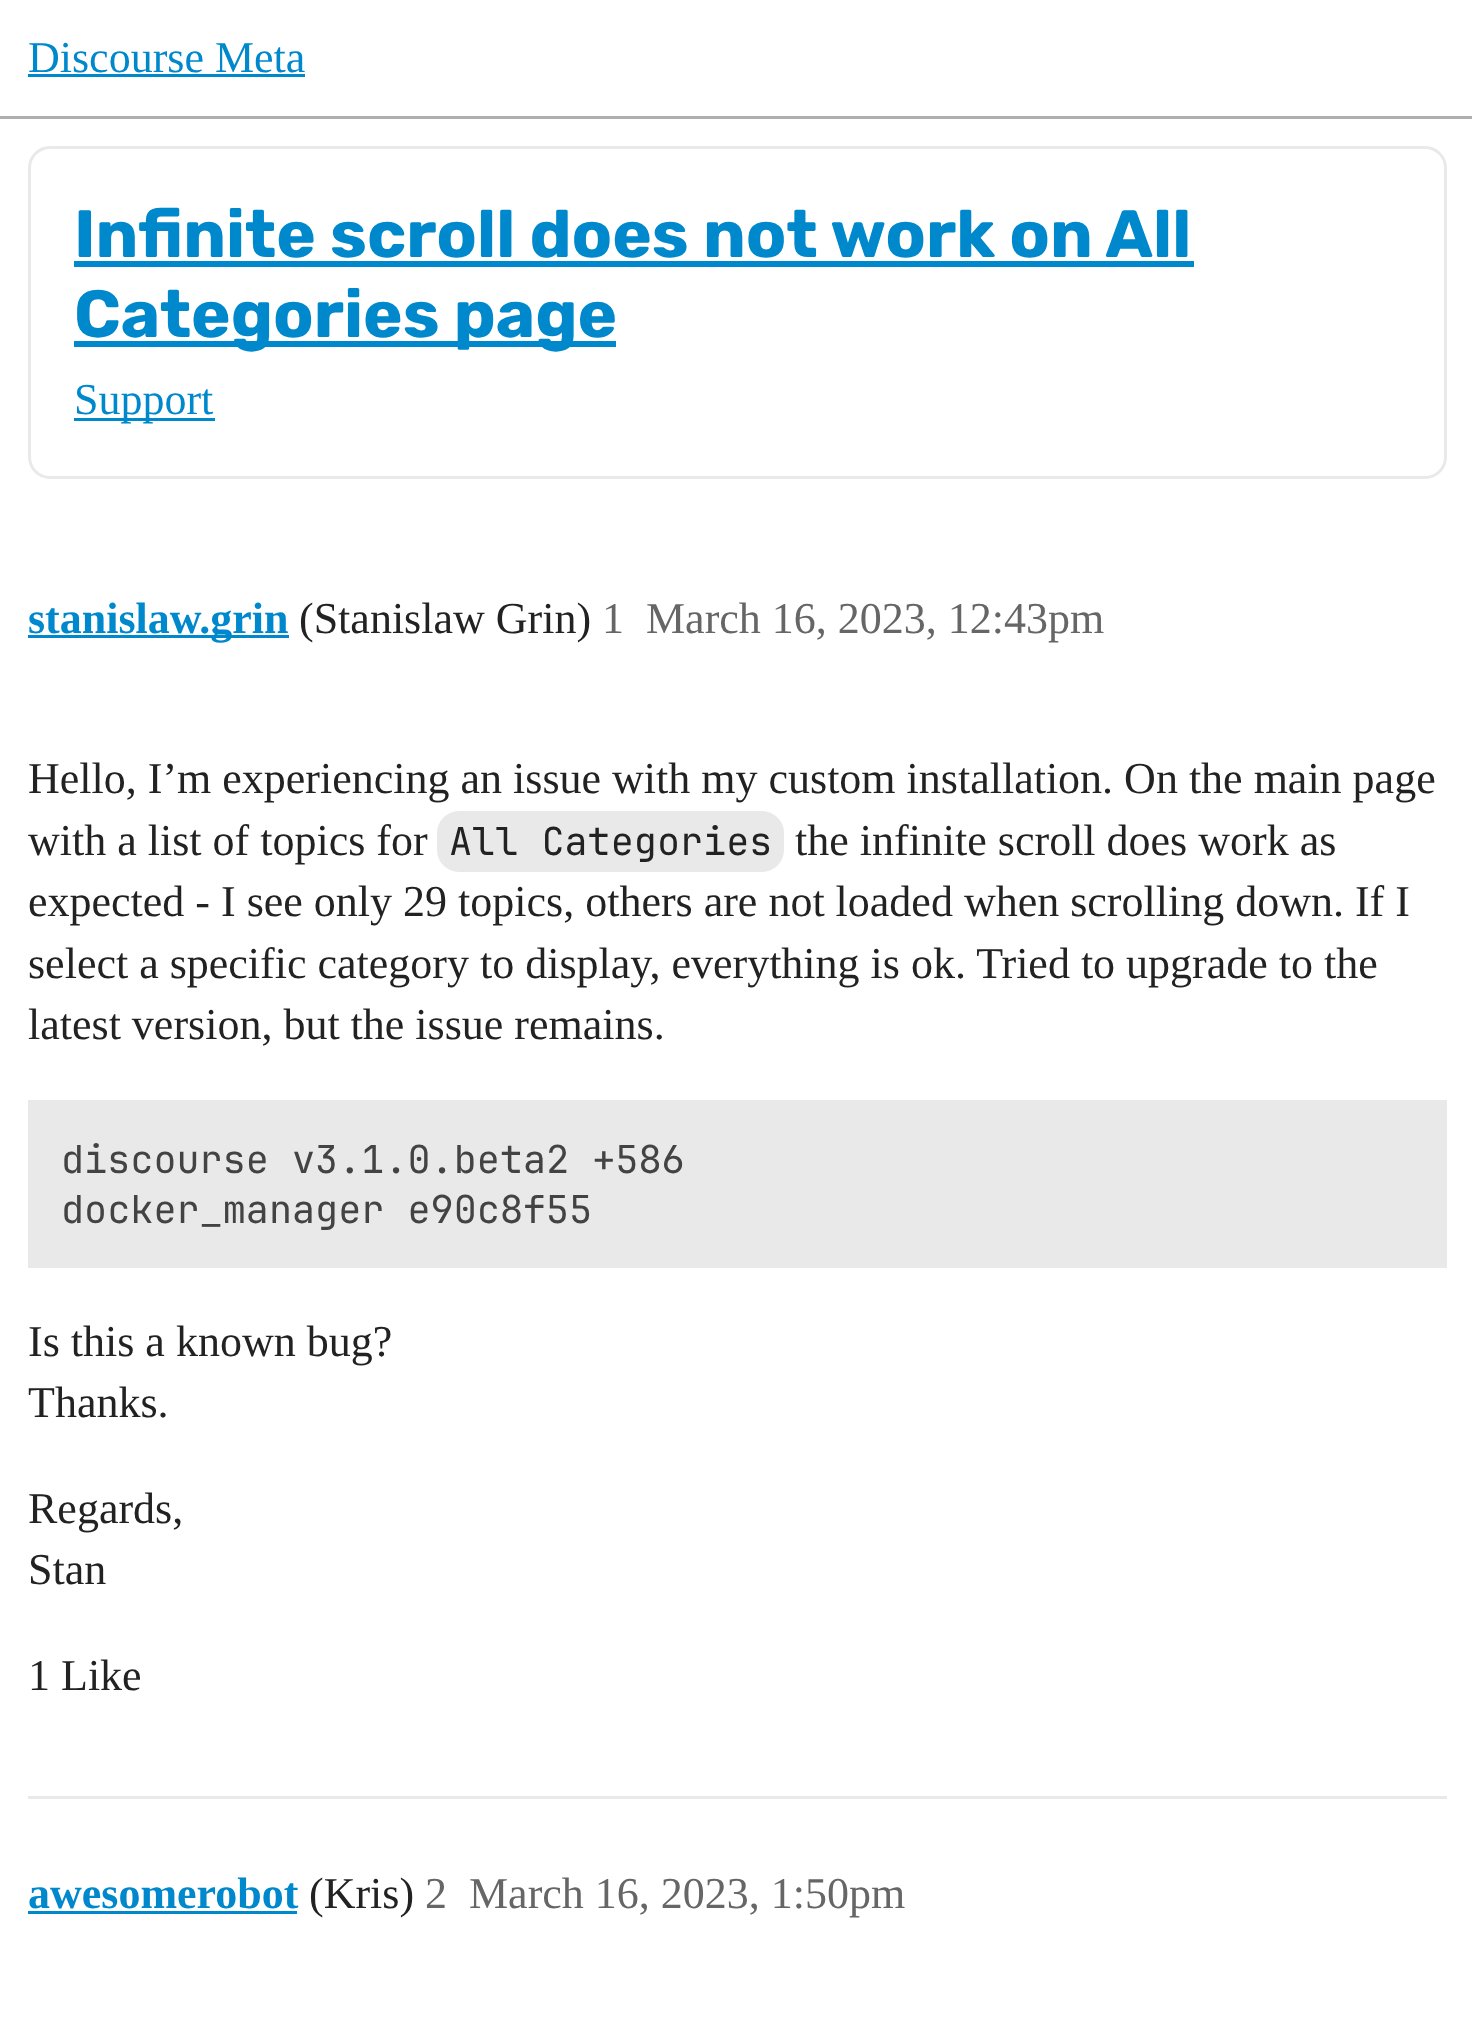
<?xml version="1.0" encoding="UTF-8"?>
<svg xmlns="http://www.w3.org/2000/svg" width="1472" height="2028">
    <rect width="100%" height="100%" fill="#FFFFFF"/>
    <rect x="0" y="116" width="1472" height="3" fill="#AFAFAF"/>
    <text x="28" y="72" font-family="Liberation Serif" font-size="44" fill="#0088CC">Discourse Meta</text>
    <rect x="28" y="74" width="277" height="3" fill="#0088CC"/>
    <rect x="29.5" y="147.5" width="1416" height="330" rx="20.5" fill="none" stroke="#E9E9E9" stroke-width="3"/>
    <text x="74" y="257" font-family="Rubik" font-size="66.7" font-weight="700" fill="#0088CC">Infinite scroll does not work on All</text>
    <rect x="74" y="261" width="1120" height="6" fill="#0088CC"/>
    <rect x="74" y="341" width="542" height="6" fill="#0088CC"/>
    <text x="74" y="337" font-family="Rubik" font-size="66.7" font-weight="700" fill="#0088CC">Categories page</text>
    <rect x="74" y="418" width="141" height="3" fill="#0088CC"/>
    <text x="74" y="414" font-family="Liberation Serif" font-size="44" fill="#0088CC">Support</text>
    <rect x="28" y="635" width="261" height="3" fill="#0088CC"/>
    <text x="28" y="633" font-family="Liberation Serif" font-size="44" font-weight="700" fill="#0088CC">stanislaw.grin</text>
    <text x="299" y="633" font-family="Liberation Serif" font-size="44" fill="#222222">(Stanislaw Grin)</text>
    <text x="602" y="633" font-family="Liberation Serif" font-size="44" fill="#666666">1</text>
    <text x="646" y="633" font-family="Liberation Serif" font-size="44" fill="#666666">March 16, 2023, 12:43pm</text>
    <text font-family="Liberation Serif" font-size="44" fill="#222222">
        <tspan x="28" y="793">Hello, I’m experiencing an issue with my custom installation. On the main page</tspan>
        <tspan x="28" y="855">with a list of topics for</tspan>
    </text>
    <rect x="437" y="811" width="347" height="61" rx="22" fill="#E9E9E9"/>
    <text x="449" y="855" font-family="JetBrains Mono" font-size="38.5" fill="#222222">All Categories</text>
    <text x="795" y="855" font-family="Liberation Serif" font-size="44" fill="#222222">the infinite scroll does work as</text>
    <text font-family="Liberation Serif" font-size="44" fill="#222222">
        <tspan x="28" y="916">expected - I see only 29 topics, others are not loaded when scrolling down. If I</tspan>
        <tspan x="28" y="978">select a specific category to display, everything is ok. Tried to upgrade to the</tspan>
        <tspan x="28" y="1039">latest version, but the issue remains.</tspan>
    </text>
    <rect x="28" y="1100" width="1419" height="168" fill="#E9E9E9"/>
    <text font-family="JetBrains Mono" font-size="38.5" fill="#434343">
        <tspan x="61" y="1173">discourse v3.1.0.beta2 +586</tspan>
        <tspan x="61" y="1223">docker_manager e90c8f55</tspan>
    </text>
    <text font-family="Liberation Serif" font-size="44" fill="#222222">
        <tspan x="28" y="1356">Is this a known bug?</tspan>
        <tspan x="28" y="1417">Thanks.</tspan>
    </text>
    <text font-family="Liberation Serif" font-size="44" fill="#222222">
        <tspan x="28" y="1523">Regards,</tspan>
        <tspan x="28" y="1584">Stan</tspan>
    </text>
    <text x="28" y="1690" font-family="Liberation Serif" font-size="44" fill="#222222">1 Like</text>
    <rect x="28" y="1796" width="1419" height="3" fill="#E9E9E9"/>
    <text x="28" y="1908" font-family="Liberation Serif" font-size="44" font-weight="700" fill="#0088CC">awesomerobot</text>
    <rect x="28" y="1911" width="269" height="3" fill="#0088CC"/>
    <text x="309" y="1908" font-family="Liberation Serif" font-size="44" fill="#222222">(Kris)</text>
    <text x="425" y="1908" font-family="Liberation Serif" font-size="44" fill="#666666">2</text>
    <text x="469" y="1908" font-family="Liberation Serif" font-size="44" fill="#666666">March 16, 2023, 1:50pm</text>
</svg>
